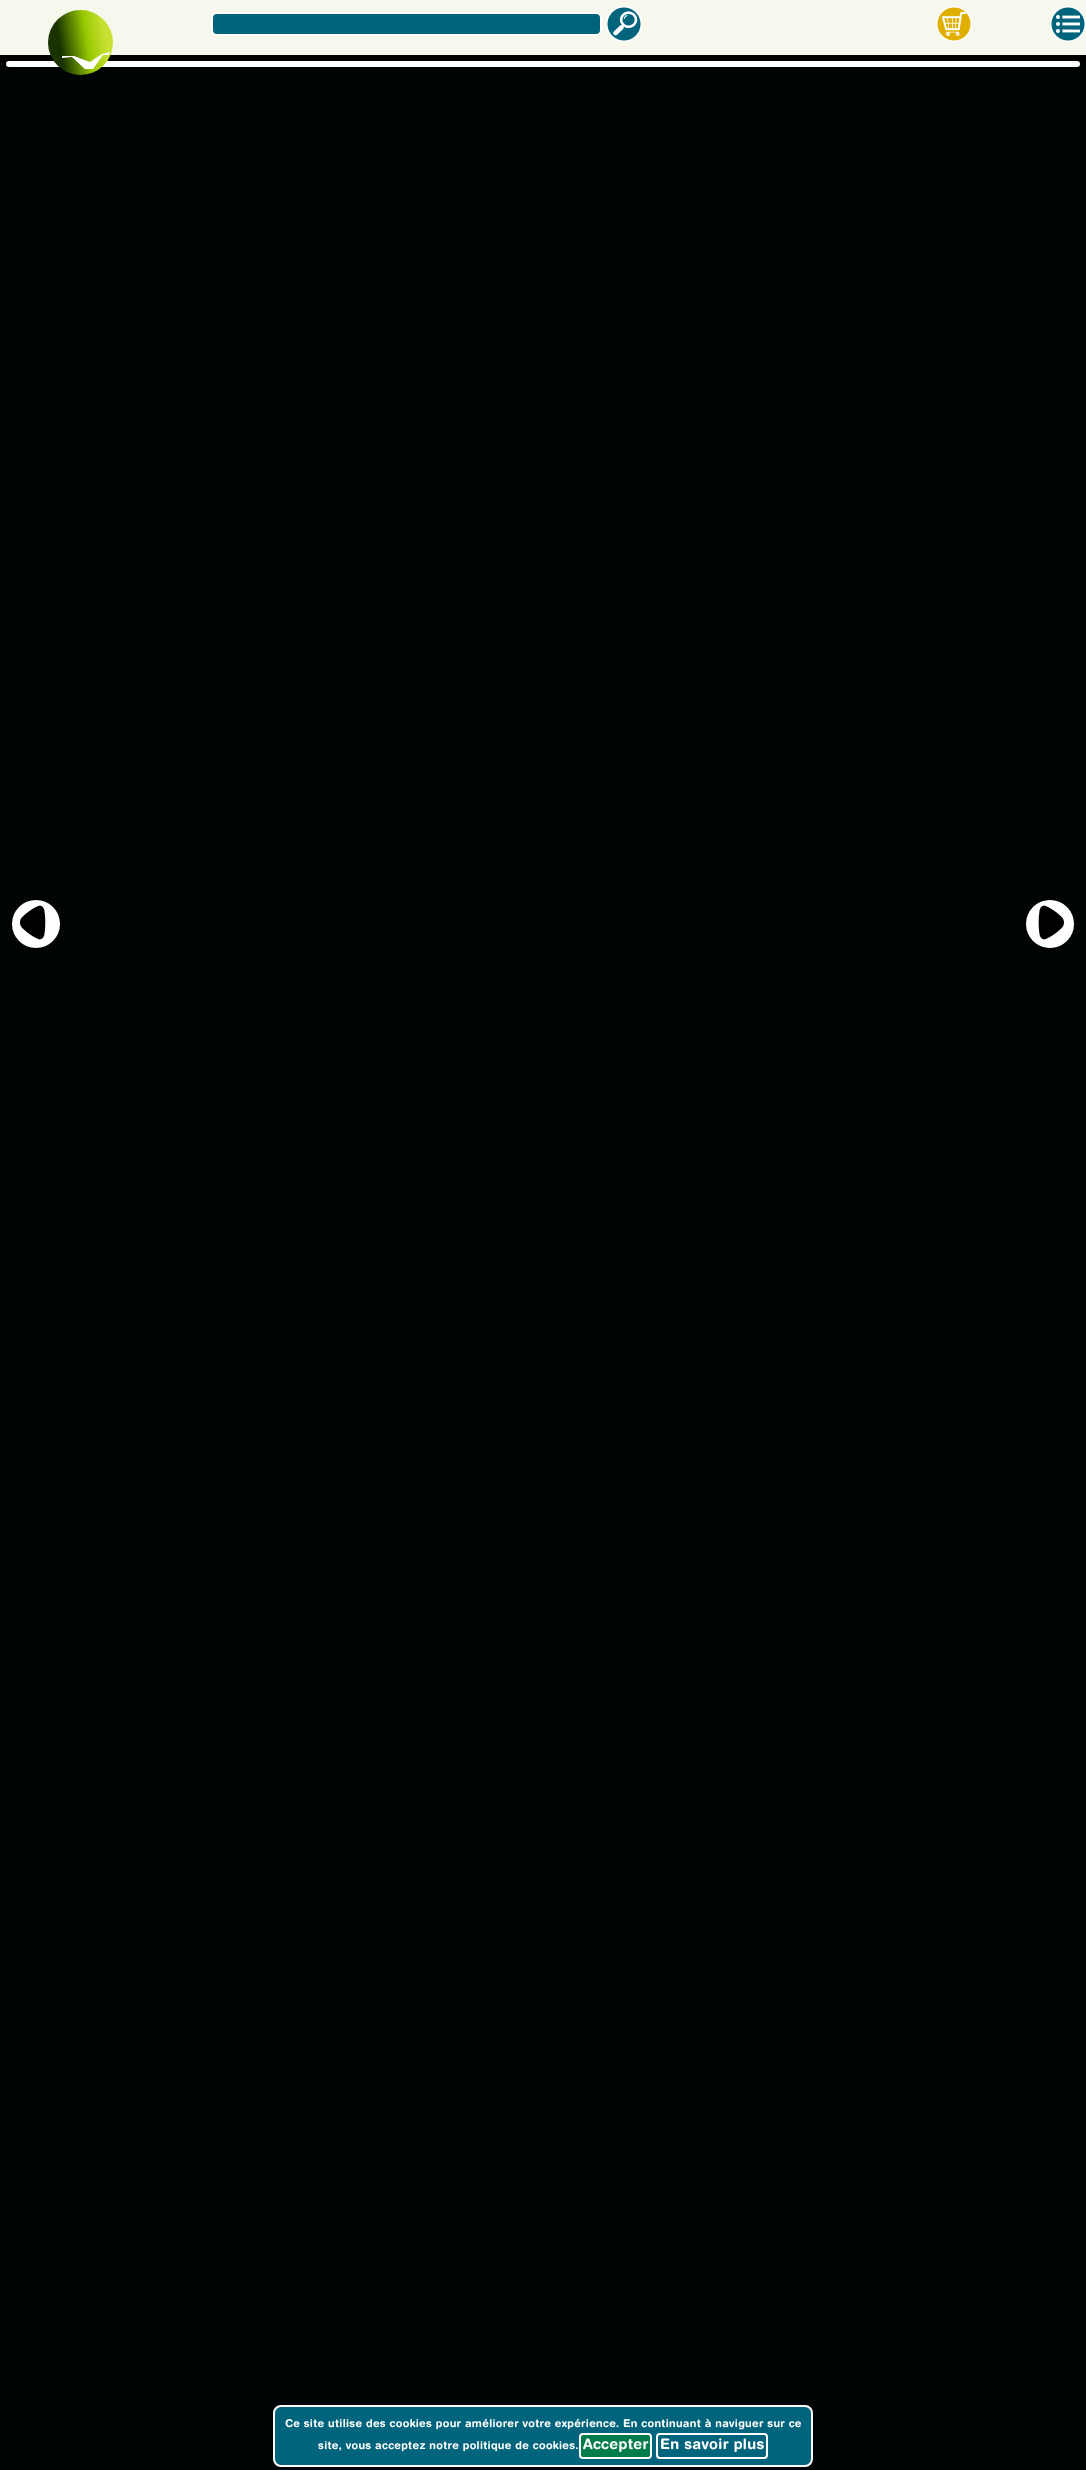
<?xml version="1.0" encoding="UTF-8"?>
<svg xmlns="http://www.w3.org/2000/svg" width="1086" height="2470">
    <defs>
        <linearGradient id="g1" gradientUnits="userSpaceOnUse" x1="114" y1="37" x2="60" y2="46"><stop offset="0.15" stop-color="#C8E132"/><stop offset="0.38" stop-color="#A9D113"/><stop offset="0.5" stop-color="#96C800"/><stop offset="1" stop-color="#193200"/></linearGradient>
    </defs>
    <rect width="100%" height="100%" fill="#F6F8EE"/>
    <rect x="0" y="55" width="1086" height="6" fill="#000000"/>
    <rect x="0" y="61" width="1086" height="2409" fill="#000404"/>
    <rect x="6" y="61" width="1074" height="6" rx="3" fill="#FFFFFF"/>
    <circle cx="36" cy="924" r="24" fill="#FFFFFF"/>
    <image x="20" y="905" width="26" height="35" href="img_01.png"/>
    <circle cx="1050" cy="924" r="24" fill="#FFFFFF"/>
    <image x="1038" y="905" width="26" height="35" href="img_02.png"/>
    <circle cx="80.5" cy="42.5" r="32.5" fill="url(#g1)"/>
    <path d="M 102 54 L 90 62 L 74 56 H 62 V 58 L 72 57 L 85 69 H 93 L 103 55 H 109 L 110 52 Z" fill="#FFFFFF"/>
    <rect x="212" y="13" width="389" height="22" rx="5" fill="#00647D" stroke="#FFFFFF" stroke-width="2"/>
    <image x="606" y="6" width="36" height="36" href="img_03.png"/>
    <image x="936" y="6" width="36" height="36" href="img_04.png"/>
    <image x="1050" y="6" width="36" height="36" href="img_05.png"/>
    <rect x="274" y="2406" width="538" height="60" rx="7" fill="#00647D" stroke="#FFFFFF" stroke-width="2"/>
    <text x="285" y="2427" font-family="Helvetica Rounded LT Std" font-size="10.8" font-weight="700" letter-spacing="0.33" fill="#FFFFFF">Ce site utilise des cookies pour améliorer votre expérience. En continuant à naviguer sur ce</text>
    <text x="318" y="2449" font-family="Helvetica Rounded LT Std" font-size="10.8" font-weight="700" letter-spacing="0.33" fill="#FFFFFF">site, vous acceptez notre politique de cookies.</text>
    <rect x="580" y="2434" width="71" height="24" rx="3" fill="#007D4B" stroke="#FFFFFF" stroke-width="2"/>
    <text x="583" y="2449" font-family="Helvetica Rounded LT Std" font-size="14.5" font-weight="700" letter-spacing="0.33" fill="#FFFFFF">Accepter</text>
    <rect x="657" y="2434" width="110" height="24" rx="3" fill="none" stroke="#FFFFFF" stroke-width="2"/>
    <text x="660" y="2449" font-family="Helvetica Rounded LT Std" font-size="14.5" font-weight="700" letter-spacing="0.33" fill="#FFFFFF">En savoir plus</text>
</svg>
